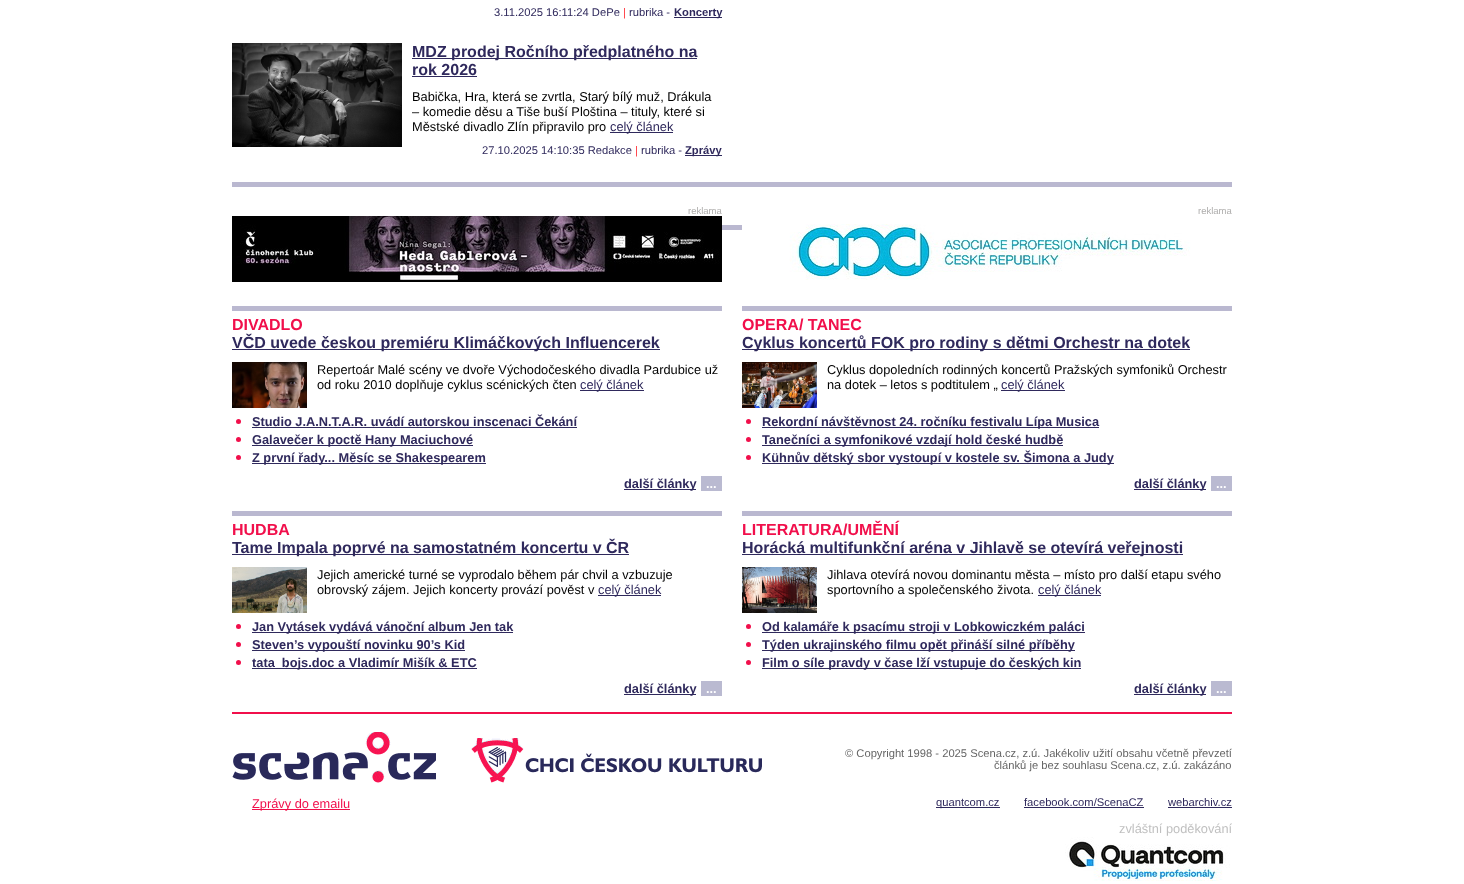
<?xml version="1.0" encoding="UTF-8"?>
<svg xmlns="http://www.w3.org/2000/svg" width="1464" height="884">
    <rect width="100%" height="100%" fill="#FFFFFF"/>
    <text x="494" y="16" font-family="Liberation Sans" font-size="11.2" fill="#2F295C">3.11.2025 16:11:24 DePe</text>
    <text x="623" y="16" font-family="Liberation Sans" font-size="11.2" fill="#FF383F">|</text>
    <text x="629" y="16" font-family="Liberation Sans" font-size="11.2" fill="#2F295C">rubrika -</text>
    <rect x="674" y="17" width="48" height="1" fill="#2F295C"/>
    <text x="674" y="16" font-family="Liberation Sans" font-size="11.2" font-weight="700" fill="#2F295C">Koncerty</text>
    <image x="232" y="43" width="170" height="104" href="img_01.png"/>
    <rect x="412" y="58" width="285" height="1" fill="#2F295C"/>
    <text font-family="Liberation Sans" font-size="16" font-weight="700" fill="#2F295C">
        <tspan x="412" y="57">MDZ prodej Ročního předplatného na</tspan>
        <tspan x="412" y="75">rok 2026</tspan>
    </text>
    <rect x="412" y="76" width="65" height="1" fill="#2F295C"/>
    <text font-family="Liberation Sans" font-size="12.8" fill="#000000">
        <tspan x="412" y="101">Babička, Hra, která se zvrtla, Starý bílý muž, Drákula</tspan>
        <tspan x="412" y="116">– komedie děsu a Tiše buší Ploština – tituly, které si</tspan>
        <tspan x="412" y="131">Městské divadlo Zlín připravilo pro</tspan>
    </text>
    <rect x="610" y="132" width="63" height="1" fill="#2F295C"/>
    <text x="610" y="131" font-family="Liberation Sans" font-size="12.8" fill="#2F295C">celý článek</text>
    <text x="482" y="154" font-family="Liberation Sans" font-size="11.2" fill="#2F295C">27.10.2025 14:10:35 Redakce</text>
    <text x="635" y="154" font-family="Liberation Sans" font-size="11.2" fill="#FF383F">|</text>
    <text x="641" y="154" font-family="Liberation Sans" font-size="11.2" fill="#2F295C">rubrika -</text>
    <rect x="685" y="155" width="37" height="1" fill="#2F295C"/>
    <text x="685" y="154" font-family="Liberation Sans" font-size="11.2" font-weight="700" fill="#2F295C">Zprávy</text>
    <rect x="232" y="182" width="1000" height="5" fill="#BAB8D0"/>
    <text x="688" y="214" font-family="Liberation Sans" font-size="9.5" fill="#AEADAC">reklama</text>
    <image x="232" y="216" width="490" height="66" href="img_02.png"/>
    <rect x="232" y="306" width="490" height="5" fill="#BAB8D0"/>
    <text x="232" y="330" font-family="Liberation Sans" font-size="16" font-weight="700" fill="#F10F4B">DIVADLO</text>
    <rect x="232" y="349" width="428" height="1" fill="#2F295C"/>
    <text x="232" y="348" font-family="Liberation Sans" font-size="16" font-weight="700" fill="#2F295C">VČD uvede českou premiéru Klimáčkových Influencerek</text>
    <image x="232" y="362" width="75" height="46" href="img_03.png"/>
    <text font-family="Liberation Sans" font-size="12.8" fill="#000000">
        <tspan x="317" y="374">Repertoár Malé scény ve dvoře Východočeského divadla Pardubice už</tspan>
        <tspan x="317" y="389">od roku 2010 doplňuje cyklus scénických čten</tspan>
    </text>
    <rect x="580" y="390" width="64" height="1" fill="#2F295C"/>
    <text x="580" y="389" font-family="Liberation Sans" font-size="12.8" fill="#2F295C">celý článek</text>
    <circle cx="238.5" cy="421.5" r="2.5" fill="#F10F4B"/>
    <text x="252" y="426" font-family="Liberation Sans" font-size="12.8" font-weight="700" fill="#2F295C">Studio J.A.N.T.A.R. uvádí autorskou inscenaci Čekání</text>
    <rect x="252" y="427" width="325" height="1" fill="#2F295C"/>
    <circle cx="238.5" cy="439.5" r="2.5" fill="#F10F4B"/>
    <rect x="252" y="445" width="221" height="1" fill="#2F295C"/>
    <text x="252" y="444" font-family="Liberation Sans" font-size="12.8" font-weight="700" fill="#2F295C">Galavečer k poctě Hany Maciuchové</text>
    <circle cx="238.5" cy="457.5" r="2.5" fill="#F10F4B"/>
    <rect x="252" y="463" width="234" height="1" fill="#2F295C"/>
    <text x="252" y="462" font-family="Liberation Sans" font-size="12.8" font-weight="700" fill="#2F295C">Z první řady... Měsíc se Shakespearem</text>
    <rect x="624" y="489" width="72" height="1" fill="#2F295C"/>
    <text x="624" y="488" font-family="Liberation Sans" font-size="12.8" font-weight="700" fill="#2F295C">další články</text>
    <rect x="701" y="476" width="21" height="15" fill="#BABAD1"/>
    <text x="706" y="488" font-family="Liberation Sans" font-size="12.8" font-weight="700" fill="#FFFFFF">...</text>
    <rect x="232" y="511" width="490" height="5" fill="#BAB8D0"/>
    <text x="232" y="535" font-family="Liberation Sans" font-size="16" font-weight="700" fill="#F10F4B">HUDBA</text>
    <rect x="232" y="554" width="397" height="1" fill="#2F295C"/>
    <text x="232" y="553" font-family="Liberation Sans" font-size="16" font-weight="700" fill="#2F295C">Tame Impala poprvé na samostatném koncertu v ČR</text>
    <image x="232" y="567" width="75" height="46" href="img_04.png"/>
    <text font-family="Liberation Sans" font-size="12.8" fill="#000000">
        <tspan x="317" y="579">Jejich americké turné se vyprodalo během pár chvil a vzbuzuje</tspan>
        <tspan x="317" y="594">obrovský zájem. Jejich koncerty provází pověst v</tspan>
    </text>
    <rect x="598" y="595" width="63" height="1" fill="#2F295C"/>
    <text x="598" y="594" font-family="Liberation Sans" font-size="12.8" fill="#2F295C">celý článek</text>
    <circle cx="238.5" cy="626.5" r="2.5" fill="#F10F4B"/>
    <rect x="252" y="632" width="261" height="1" fill="#2F295C"/>
    <text x="252" y="631" font-family="Liberation Sans" font-size="12.8" font-weight="700" fill="#2F295C">Jan Vytásek vydává vánoční album Jen tak</text>
    <circle cx="238.5" cy="644.5" r="2.5" fill="#F10F4B"/>
    <rect x="252" y="650" width="213" height="1" fill="#2F295C"/>
    <text x="252" y="649" font-family="Liberation Sans" font-size="12.8" font-weight="700" fill="#2F295C">Steven’s vypouští novinku 90’s Kid</text>
    <circle cx="238.5" cy="662.5" r="2.5" fill="#F10F4B"/>
    <rect x="252" y="668" width="225" height="1" fill="#2F295C"/>
    <text x="252" y="667" font-family="Liberation Sans" font-size="12.8" font-weight="700" fill="#2F295C">tata_bojs.doc a Vladimír Mišík &amp; ETC</text>
    <rect x="624" y="694" width="72" height="1" fill="#2F295C"/>
    <text x="624" y="693" font-family="Liberation Sans" font-size="12.8" font-weight="700" fill="#2F295C">další články</text>
    <rect x="701" y="681" width="21" height="15" fill="#BABAD1"/>
    <text x="706" y="693" font-family="Liberation Sans" font-size="12.8" font-weight="700" fill="#FFFFFF">...</text>
    <rect x="722" y="225" width="20" height="5" fill="#BAB8D0"/>
    <text x="1198" y="214" font-family="Liberation Sans" font-size="9.5" fill="#AEADAC">reklama</text>
    <image x="742" y="224" width="490" height="56" href="img_05.png"/>
    <rect x="742" y="306" width="490" height="5" fill="#BAB8D0"/>
    <text x="742" y="330" font-family="Liberation Sans" font-size="16" font-weight="700" fill="#F10F4B">OPERA/ TANEC</text>
    <rect x="742" y="349" width="448" height="1" fill="#2F295C"/>
    <text x="742" y="348" font-family="Liberation Sans" font-size="16" font-weight="700" fill="#2F295C">Cyklus koncertů FOK pro rodiny s dětmi Orchestr na dotek</text>
    <image x="742" y="362" width="75" height="46" href="img_06.png"/>
    <text font-family="Liberation Sans" font-size="12.8" fill="#000000">
        <tspan x="827" y="374">Cyklus dopoledních rodinných koncertů Pražských symfoniků Orchestr</tspan>
        <tspan x="827" y="389">na dotek – letos s podtitulem „</tspan>
    </text>
    <rect x="1001" y="390" width="64" height="1" fill="#2F295C"/>
    <text x="1001" y="389" font-family="Liberation Sans" font-size="12.8" fill="#2F295C">celý článek</text>
    <circle cx="748.5" cy="421.5" r="2.5" fill="#F10F4B"/>
    <rect x="762" y="427" width="337" height="1" fill="#2F295C"/>
    <text x="762" y="426" font-family="Liberation Sans" font-size="12.8" font-weight="700" fill="#2F295C">Rekordní návštěvnost 24. ročníku festivalu Lípa Musica</text>
    <circle cx="748.5" cy="439.5" r="2.5" fill="#F10F4B"/>
    <rect x="762" y="445" width="301" height="1" fill="#2F295C"/>
    <text x="762" y="444" font-family="Liberation Sans" font-size="12.8" font-weight="700" fill="#2F295C">Tanečníci a symfonikové vzdají hold české hudbě</text>
    <circle cx="748.5" cy="457.5" r="2.5" fill="#F10F4B"/>
    <rect x="762" y="463" width="352" height="1" fill="#2F295C"/>
    <text x="762" y="462" font-family="Liberation Sans" font-size="12.8" font-weight="700" fill="#2F295C">Kühnův dětský sbor vystoupí v kostele sv. Šimona a Judy</text>
    <rect x="1134" y="489" width="72" height="1" fill="#2F295C"/>
    <text x="1134" y="488" font-family="Liberation Sans" font-size="12.8" font-weight="700" fill="#2F295C">další články</text>
    <rect x="1211" y="476" width="21" height="15" fill="#BABAD1"/>
    <text x="1216" y="488" font-family="Liberation Sans" font-size="12.8" font-weight="700" fill="#FFFFFF">...</text>
    <rect x="742" y="511" width="490" height="5" fill="#BAB8D0"/>
    <text x="742" y="535" font-family="Liberation Sans" font-size="16" font-weight="700" fill="#F10F4B">LITERATURA/UMĚNÍ</text>
    <rect x="742" y="554" width="441" height="1" fill="#2F295C"/>
    <text x="742" y="553" font-family="Liberation Sans" font-size="16" font-weight="700" fill="#2F295C">Horácká multifunkční aréna v Jihlavě se otevírá veřejnosti</text>
    <image x="742" y="567" width="75" height="46" href="img_07.png"/>
    <text font-family="Liberation Sans" font-size="12.8" fill="#000000">
        <tspan x="827" y="579">Jihlava otevírá novou dominantu města – místo pro další etapu svého</tspan>
        <tspan x="827" y="594">sportovního a společenského života.</tspan>
    </text>
    <rect x="1038" y="595" width="63" height="1" fill="#2F295C"/>
    <text x="1038" y="594" font-family="Liberation Sans" font-size="12.8" fill="#2F295C">celý článek</text>
    <circle cx="748.5" cy="626.5" r="2.5" fill="#F10F4B"/>
    <rect x="762" y="632" width="323" height="1" fill="#2F295C"/>
    <text x="762" y="631" font-family="Liberation Sans" font-size="12.8" font-weight="700" fill="#2F295C">Od kalamáře k psacímu stroji v Lobkowiczkém paláci</text>
    <circle cx="748.5" cy="644.5" r="2.5" fill="#F10F4B"/>
    <rect x="762" y="650" width="313" height="1" fill="#2F295C"/>
    <text x="762" y="649" font-family="Liberation Sans" font-size="12.8" font-weight="700" fill="#2F295C">Týden ukrajinského filmu opět přináší silné příběhy</text>
    <circle cx="748.5" cy="662.5" r="2.5" fill="#F10F4B"/>
    <rect x="762" y="668" width="319" height="1" fill="#2F295C"/>
    <text x="762" y="667" font-family="Liberation Sans" font-size="12.8" font-weight="700" fill="#2F295C">Film o síle pravdy v čase lží vstupuje do českých kin</text>
    <rect x="1134" y="694" width="72" height="1" fill="#2F295C"/>
    <text x="1134" y="693" font-family="Liberation Sans" font-size="12.8" font-weight="700" fill="#2F295C">další články</text>
    <rect x="1211" y="681" width="21" height="15" fill="#BABAD1"/>
    <text x="1216" y="693" font-family="Liberation Sans" font-size="12.8" font-weight="700" fill="#FFFFFF">...</text>
    <rect x="232" y="712" width="1000" height="2" fill="#F10F4B"/>
    <image x="232" y="732" width="204" height="51" href="img_08.png"/>
    <image x="471" y="738" width="291" height="45" href="img_09.png"/>
    <text x="845" y="757" font-family="Liberation Sans" font-size="11.2" fill="#666666">© Copyright 1998 - 2025 Scena.cz, z.ú. Jakékoliv užití obsahu včetně převzetí</text>
    <text x="994" y="769" font-family="Liberation Sans" font-size="11.2" fill="#666666">článků je bez souhlasu Scena.cz, z.ú. zakázáno</text>
    <rect x="252" y="809" width="98" height="1" fill="#F10F4B"/>
    <text x="252" y="808" font-family="Liberation Sans" font-size="12.8" fill="#F10F4B">Zprávy do emailu</text>
    <rect x="936" y="807" width="64" height="1" fill="#2F295C"/>
    <text x="936" y="806" font-family="Liberation Sans" font-size="11.2" fill="#2F295C">quantcom.cz</text>
    <text x="1024" y="806" font-family="Liberation Sans" font-size="11.2" fill="#2F295C">facebook.com/ScenaCZ</text>
    <rect x="1024" y="807" width="120" height="1" fill="#2F295C"/>
    <text x="1168" y="806" font-family="Liberation Sans" font-size="11.2" fill="#2F295C">webarchiv.cz</text>
    <rect x="1168" y="807" width="64" height="1" fill="#2F295C"/>
    <text x="1119" y="833" font-family="Liberation Sans" font-size="12.8" fill="#C0C0C0">zvláštní poděkování</text>
    <image x="1065" y="837" width="165" height="44" href="img_10.png"/>
</svg>
